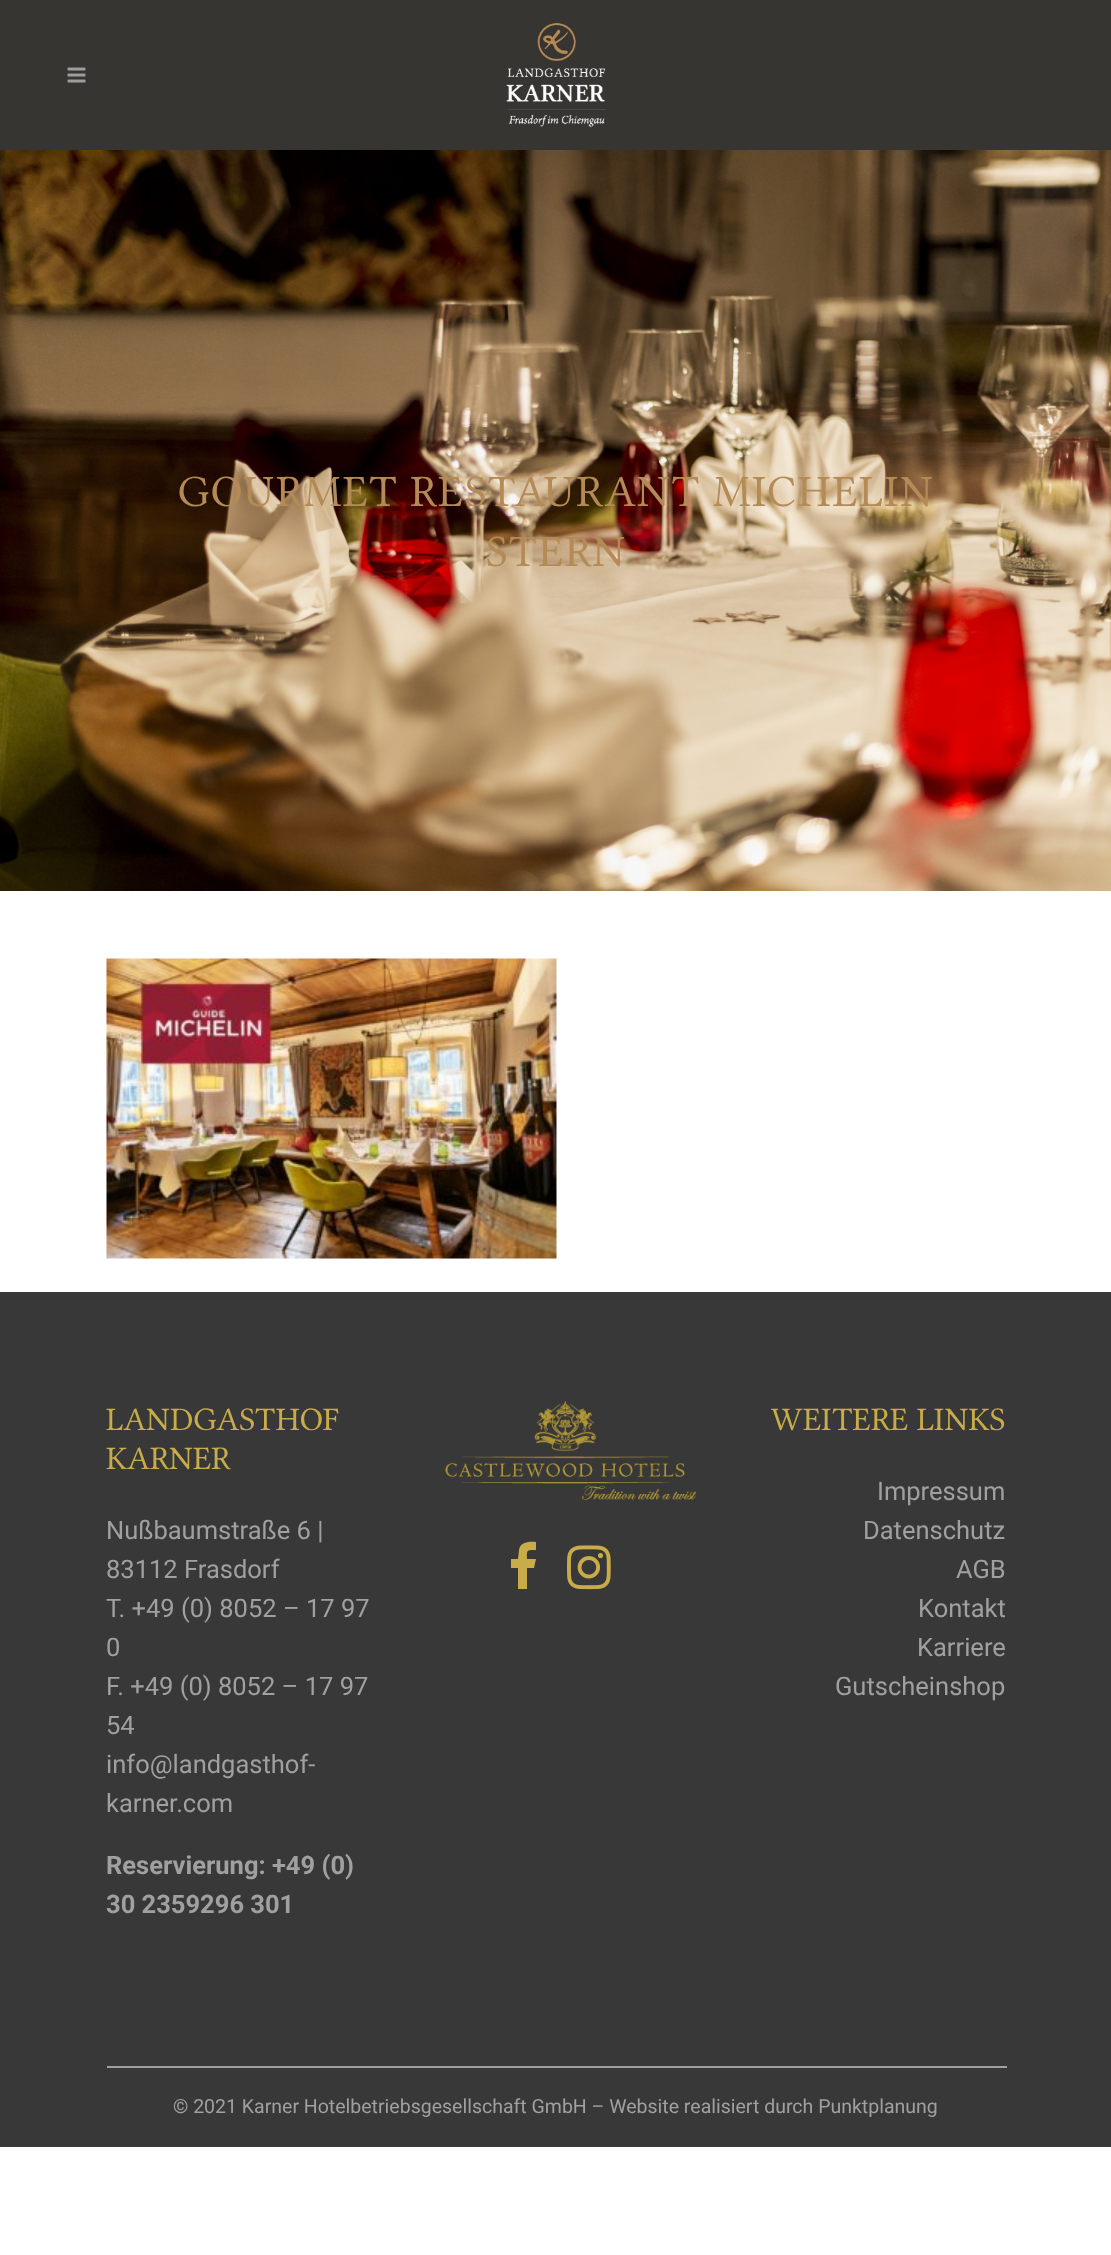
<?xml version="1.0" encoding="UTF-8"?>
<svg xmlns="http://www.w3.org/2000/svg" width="1111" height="2255">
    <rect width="100%" height="100%" fill="#FFFFFF"/>
    <rect x="0" y="0" width="1111" height="150" fill="#373532"/>
    <image x="67" y="67" width="19" height="16" href="img_01.png"/>
    <image x="506" y="23" width="100" height="104" href="img_02.png"/>
    <image x="0" y="150" width="1111" height="741" href="img_03.png"/>
    <text x="178" y="506" font-family="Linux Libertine" font-size="45" letter-spacing="1.5" fill="#B48A56">GOURMET RESTAURANT MICHELIN</text>
    <text x="486" y="566" font-family="Linux Libertine" font-size="45" letter-spacing="1.5" fill="#B48A56">STERN</text>
    <image x="106" y="958" width="451" height="301" href="img_04.png"/>
    <rect x="0" y="1292" width="1111" height="855" fill="#383838"/>
    <text font-family="Linux Libertine" font-size="33" fill="#C9AC4A">
        <tspan x="106" y="1430">LANDGASTHOF</tspan>
        <tspan x="106" y="1469">KARNER</tspan>
    </text>
    <text font-family="Roboto" font-size="25.5" fill="#A0A0A0">
        <tspan x="106" y="1539">Nußbaumstraße 6 |</tspan>
        <tspan x="106" y="1578">83112 Frasdorf</tspan>
        <tspan x="106" y="1617">T. +49 (0) 8052 – 17 97</tspan>
        <tspan x="106" y="1656">0</tspan>
        <tspan x="106" y="1695">F. +49 (0) 8052 – 17 97</tspan>
        <tspan x="106" y="1734">54</tspan>
        <tspan x="106" y="1773">info@landgasthof-</tspan>
        <tspan x="106" y="1812">karner.com</tspan>
    </text>
    <text font-family="Roboto" font-size="25.5" font-weight="700" fill="#A0A0A0">
        <tspan x="106" y="1874">Reservierung: +49 (0)</tspan>
        <tspan x="106" y="1913">30 2359296 301</tspan>
    </text>
    <image x="445" y="1401" width="252" height="99" href="img_05.png"/>
    <path d="M 536 1542 V 1550 C 526 1550 527 1550 527 1559 H 536 L 534 1568 H 527 V 1589 H 518 V 1568 H 511 V 1559 H 518 L 519 1550 C 520 1542 529 1541 536 1542 Z" fill="#C9AC4A"/>
    <image x="567" y="1545" width="44" height="45" href="img_06.png"/>
    <text x="771" y="1430" font-family="Linux Libertine" font-size="33" fill="#C9AC4A">WEITERE LINKS</text>
    <text x="877" y="1500" font-family="Roboto" font-size="25.5" fill="#A0A0A0">Impressum</text>
    <text x="863" y="1539" font-family="Roboto" font-size="25.5" fill="#A0A0A0">Datenschutz</text>
    <text x="956" y="1578" font-family="Roboto" font-size="25.5" fill="#A0A0A0">AGB</text>
    <text x="918" y="1617" font-family="Roboto" font-size="25.5" fill="#A0A0A0">Kontakt</text>
    <text x="917" y="1656" font-family="Roboto" font-size="25.5" fill="#A0A0A0">Karriere</text>
    <text x="835" y="1695" font-family="Roboto" font-size="25.5" fill="#A0A0A0">Gutscheinshop</text>
    <rect x="107" y="2066" width="900" height="2" fill="#A0A0A0"/>
    <text x="173" y="2113" font-family="Roboto" font-size="19.5" fill="#A0A0A0">© 2021 Karner Hotelbetriebsgesellschaft GmbH – Website realisiert durch Punktplanung</text>
</svg>
